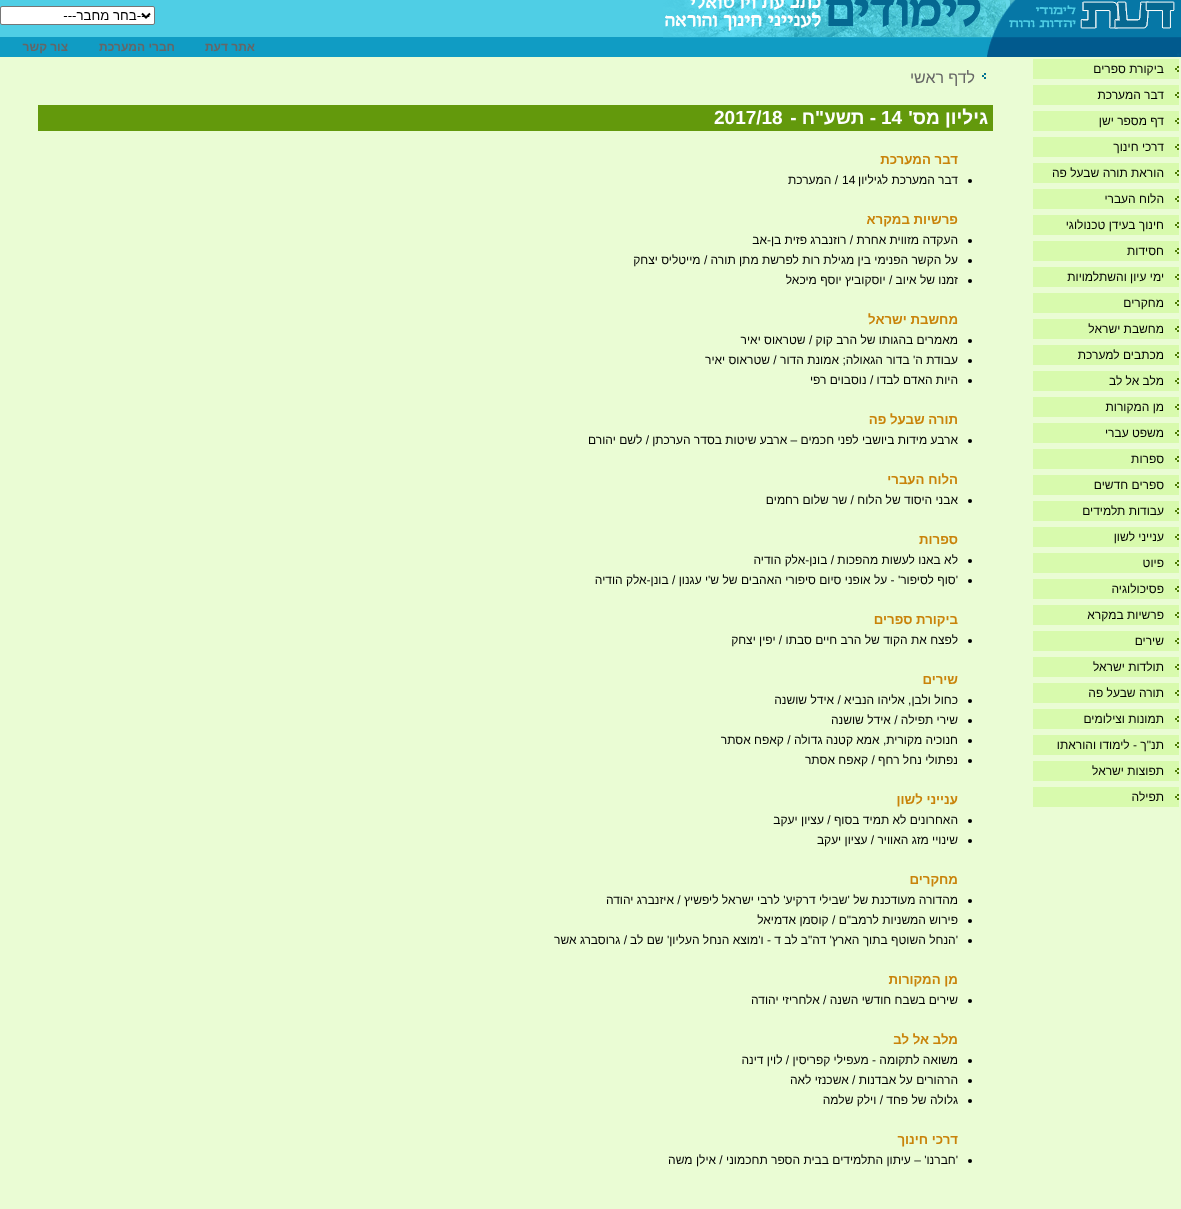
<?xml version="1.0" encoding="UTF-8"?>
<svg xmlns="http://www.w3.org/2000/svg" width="1181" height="1209">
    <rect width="100%" height="100%" fill="#EAFCD4"/>
    <image x="987" y="0" width="194" height="57" href="img_01.png"/>
    <rect x="663" y="38" width="324" height="19" fill="#109CC4"/>
    <image x="663" y="0" width="324" height="38" href="img_02.png"/>
    <rect x="0" y="0" width="663" height="37" fill="#4FCEE5"/>
    <rect x="0.5" y="6.5" width="154" height="18" rx="1.5" fill="#FFFFFF" stroke="#767676"/>
    <path d="M 142 13.5 L 146 17.5 L 150 13.5" fill="none" stroke="#000000" stroke-width="2"/>
    <text x="150" y="20" font-family="Liberation Sans" font-size="13.25" direction="rtl" fill="#000000">---בחר מחבר---</text>
    <rect x="0" y="37" width="663" height="20" fill="#109CC4"/>
    <text x="255" y="51" font-family="Liberation Sans" font-size="12" font-weight="700" direction="rtl" fill="#666666">אתר</text>
    <text x="228" y="51" font-family="Liberation Sans" font-size="12" font-weight="700" direction="rtl" fill="#666666">דעת</text>
    <text x="175" y="51" font-family="Liberation Sans" font-size="12" font-weight="700" direction="rtl" fill="#666666">חברי המערכת</text>
    <text x="68" y="51" font-family="Liberation Sans" font-size="12" font-weight="700" direction="rtl" fill="#666666">צור</text>
    <text x="47" y="51" font-family="Liberation Sans" font-size="12" font-weight="700" direction="rtl" fill="#666666">קשר</text>
    <rect x="1033" y="59" width="146" height="20" fill="#D8FAAD"/>
    <image x="1175" y="66" width="4" height="6" href="img_03.png"/>
    <text x="1164" y="73" font-family="Liberation Sans" font-size="12" direction="rtl" fill="#000000">ביקורת ספרים</text>
    <rect x="1033" y="85" width="146" height="20" fill="#D8FAAD"/>
    <image x="1175" y="92" width="4" height="6" href="img_03.png"/>
    <text x="1164" y="99" font-family="Liberation Sans" font-size="12" direction="rtl" fill="#000000">דבר המערכת</text>
    <rect x="1033" y="111" width="146" height="20" fill="#D8FAAD"/>
    <image x="1175" y="118" width="4" height="6" href="img_03.png"/>
    <text x="1164" y="125" font-family="Liberation Sans" font-size="12" direction="rtl" fill="#000000">דף מספר ישן</text>
    <rect x="1033" y="137" width="146" height="20" fill="#D8FAAD"/>
    <image x="1175" y="144" width="4" height="6" href="img_03.png"/>
    <text x="1164" y="151" font-family="Liberation Sans" font-size="12" direction="rtl" fill="#000000">דרכי חינוך</text>
    <rect x="1033" y="163" width="146" height="20" fill="#D8FAAD"/>
    <image x="1175" y="170" width="4" height="6" href="img_03.png"/>
    <text x="1164" y="177" font-family="Liberation Sans" font-size="12" direction="rtl" fill="#000000">הוראת תורה שבעל פה</text>
    <rect x="1033" y="189" width="146" height="20" fill="#D8FAAD"/>
    <image x="1175" y="196" width="4" height="6" href="img_03.png"/>
    <text x="1164" y="203" font-family="Liberation Sans" font-size="12" direction="rtl" fill="#000000">הלוח העברי</text>
    <rect x="1033" y="215" width="146" height="20" fill="#D8FAAD"/>
    <image x="1175" y="222" width="4" height="6" href="img_03.png"/>
    <text x="1164" y="229" font-family="Liberation Sans" font-size="12" direction="rtl" fill="#000000">חינוך בעידן טכנולוגי</text>
    <rect x="1033" y="241" width="146" height="20" fill="#D8FAAD"/>
    <image x="1175" y="248" width="4" height="6" href="img_03.png"/>
    <text x="1164" y="255" font-family="Liberation Sans" font-size="12" direction="rtl" fill="#000000">חסידות</text>
    <rect x="1033" y="267" width="146" height="20" fill="#D8FAAD"/>
    <image x="1175" y="274" width="4" height="6" href="img_03.png"/>
    <text x="1164" y="281" font-family="Liberation Sans" font-size="12" direction="rtl" fill="#000000">ימי עיון והשתלמויות</text>
    <rect x="1033" y="293" width="146" height="20" fill="#D8FAAD"/>
    <image x="1175" y="300" width="4" height="6" href="img_03.png"/>
    <text x="1164" y="307" font-family="Liberation Sans" font-size="12" direction="rtl" fill="#000000">מחקרים</text>
    <rect x="1033" y="319" width="146" height="20" fill="#D8FAAD"/>
    <image x="1175" y="326" width="4" height="6" href="img_03.png"/>
    <text x="1164" y="333" font-family="Liberation Sans" font-size="12" direction="rtl" fill="#000000">מחשבת ישראל</text>
    <rect x="1033" y="345" width="146" height="20" fill="#D8FAAD"/>
    <image x="1175" y="352" width="4" height="6" href="img_03.png"/>
    <text x="1164" y="359" font-family="Liberation Sans" font-size="12" direction="rtl" fill="#000000">מכתבים למערכת</text>
    <rect x="1033" y="371" width="146" height="20" fill="#D8FAAD"/>
    <image x="1175" y="378" width="4" height="6" href="img_03.png"/>
    <text x="1164" y="385" font-family="Liberation Sans" font-size="12" direction="rtl" fill="#000000">מלב אל לב</text>
    <rect x="1033" y="397" width="146" height="20" fill="#D8FAAD"/>
    <image x="1175" y="404" width="4" height="6" href="img_03.png"/>
    <text x="1164" y="411" font-family="Liberation Sans" font-size="12" direction="rtl" fill="#000000">מן המקורות</text>
    <rect x="1033" y="423" width="146" height="20" fill="#D8FAAD"/>
    <image x="1175" y="430" width="4" height="6" href="img_03.png"/>
    <text x="1164" y="437" font-family="Liberation Sans" font-size="12" direction="rtl" fill="#000000">משפט עברי</text>
    <rect x="1033" y="449" width="146" height="20" fill="#D8FAAD"/>
    <image x="1175" y="456" width="4" height="6" href="img_03.png"/>
    <text x="1164" y="463" font-family="Liberation Sans" font-size="12" direction="rtl" fill="#000000">ספרות</text>
    <rect x="1033" y="475" width="146" height="20" fill="#D8FAAD"/>
    <image x="1175" y="482" width="4" height="6" href="img_03.png"/>
    <text x="1164" y="489" font-family="Liberation Sans" font-size="12" direction="rtl" fill="#000000">ספרים חדשים</text>
    <rect x="1033" y="501" width="146" height="20" fill="#D8FAAD"/>
    <image x="1175" y="508" width="4" height="6" href="img_03.png"/>
    <text x="1164" y="515" font-family="Liberation Sans" font-size="12" direction="rtl" fill="#000000">עבודות תלמידים</text>
    <rect x="1033" y="527" width="146" height="20" fill="#D8FAAD"/>
    <image x="1175" y="534" width="4" height="6" href="img_03.png"/>
    <text x="1164" y="541" font-family="Liberation Sans" font-size="12" direction="rtl" fill="#000000">ענייני לשון</text>
    <rect x="1033" y="553" width="146" height="20" fill="#D8FAAD"/>
    <image x="1175" y="560" width="4" height="6" href="img_03.png"/>
    <text x="1164" y="567" font-family="Liberation Sans" font-size="12" direction="rtl" fill="#000000">פיוט</text>
    <rect x="1033" y="579" width="146" height="20" fill="#D8FAAD"/>
    <image x="1175" y="586" width="4" height="6" href="img_03.png"/>
    <text x="1164" y="593" font-family="Liberation Sans" font-size="12" direction="rtl" fill="#000000">פסיכולוגיה</text>
    <rect x="1033" y="605" width="146" height="20" fill="#D8FAAD"/>
    <image x="1175" y="612" width="4" height="6" href="img_03.png"/>
    <text x="1164" y="619" font-family="Liberation Sans" font-size="12" direction="rtl" fill="#000000">פרשיות במקרא</text>
    <rect x="1033" y="631" width="146" height="20" fill="#D8FAAD"/>
    <image x="1175" y="638" width="4" height="6" href="img_03.png"/>
    <text x="1164" y="645" font-family="Liberation Sans" font-size="12" direction="rtl" fill="#000000">שירים</text>
    <rect x="1033" y="657" width="146" height="20" fill="#D8FAAD"/>
    <image x="1175" y="664" width="4" height="6" href="img_03.png"/>
    <text x="1164" y="671" font-family="Liberation Sans" font-size="12" direction="rtl" fill="#000000">תולדות ישראל</text>
    <rect x="1033" y="683" width="146" height="20" fill="#D8FAAD"/>
    <image x="1175" y="690" width="4" height="6" href="img_03.png"/>
    <text x="1164" y="697" font-family="Liberation Sans" font-size="12" direction="rtl" fill="#000000">תורה שבעל פה</text>
    <rect x="1033" y="709" width="146" height="20" fill="#D8FAAD"/>
    <image x="1175" y="716" width="4" height="6" href="img_03.png"/>
    <text x="1164" y="723" font-family="Liberation Sans" font-size="12" direction="rtl" fill="#000000">תמונות וצילומים</text>
    <rect x="1033" y="735" width="146" height="20" fill="#D8FAAD"/>
    <image x="1175" y="742" width="4" height="6" href="img_03.png"/>
    <text x="1164" y="749" font-family="Liberation Sans" font-size="12" direction="rtl" fill="#000000">תנ"ך - לימודו והוראתו</text>
    <rect x="1033" y="761" width="146" height="20" fill="#D8FAAD"/>
    <image x="1175" y="768" width="4" height="6" href="img_03.png"/>
    <text x="1164" y="775" font-family="Liberation Sans" font-size="12" direction="rtl" fill="#000000">תפוצות ישראל</text>
    <rect x="1033" y="787" width="146" height="20" fill="#D8FAAD"/>
    <image x="1175" y="794" width="4" height="6" href="img_03.png"/>
    <text x="1164" y="801" font-family="Liberation Sans" font-size="12" direction="rtl" fill="#000000">תפילה</text>
    <image x="982" y="73" width="4" height="6" href="img_04.png"/>
    <text x="975" y="83" font-family="Liberation Sans" font-size="16" direction="rtl" fill="#666666">לדף</text>
    <text x="944" y="83" font-family="Liberation Sans" font-size="16" direction="rtl" fill="#666666">ראשי</text>
    <rect x="38" y="105" width="955" height="26" fill="#63990C"/>
    <text x="988" y="124" font-family="Liberation Sans" font-size="19" font-weight="700" direction="rtl" fill="#FFFFFF">גיליון מס'</text>
    <text x="881" y="124" font-family="Liberation Sans" font-size="19" font-weight="700" fill="#FFFFFF">14</text>
    <text x="876" y="124" font-family="Liberation Sans" font-size="19" font-weight="700" direction="rtl" fill="#FFFFFF">- תשע"ח -</text>
    <text x="714" y="124" font-family="Liberation Sans" font-size="19" font-weight="700" fill="#FFFFFF">2017/18</text>
    <text x="958" y="164" font-family="Liberation Sans" font-size="13.25" font-weight="700" direction="rtl" fill="#C9830A">דבר המערכת</text>
    <circle cx="970" cy="181" r="2" fill="#000000"/>
    <text x="958" y="184" font-family="Liberation Sans" font-size="12" direction="rtl" fill="#000000">דבר המערכת לגיליון</text>
    <text x="842" y="184" font-family="Liberation Sans" font-size="12" fill="#000000">14</text>
    <text x="838" y="184" font-family="Liberation Sans" font-size="12" direction="rtl" fill="#000000">/ המערכת</text>
    <text x="958" y="224" font-family="Liberation Sans" font-size="13.25" font-weight="700" direction="rtl" fill="#C9830A">פרשיות במקרא</text>
    <circle cx="970" cy="241" r="2" fill="#000000"/>
    <text x="958" y="244" font-family="Liberation Sans" font-size="12" direction="rtl" fill="#000000">העקדה מזווית אחרת / רוזנברג פזית בן-אב</text>
    <circle cx="970" cy="261" r="2" fill="#000000"/>
    <text x="958" y="264" font-family="Liberation Sans" font-size="12" direction="rtl" fill="#000000">על הקשר הפנימי בין מגילת רות לפרשת מתן תורה / מייטליס יצחק</text>
    <circle cx="970" cy="281" r="2" fill="#000000"/>
    <text x="958" y="284" font-family="Liberation Sans" font-size="12" direction="rtl" fill="#000000">זמנו של איוב / יוסקוביץ יוסף מיכאל</text>
    <text x="958" y="324" font-family="Liberation Sans" font-size="13.25" font-weight="700" direction="rtl" fill="#C9830A">מחשבת ישראל</text>
    <circle cx="970" cy="341" r="2" fill="#000000"/>
    <text x="958" y="344" font-family="Liberation Sans" font-size="12" direction="rtl" fill="#000000">מאמרים בהגותו של הרב קוק / שטראוס יאיר</text>
    <circle cx="970" cy="361" r="2" fill="#000000"/>
    <text x="958" y="364" font-family="Liberation Sans" font-size="12" direction="rtl" fill="#000000">עבודת ה' בדור הגאולה;</text>
    <text x="839" y="364" font-family="Liberation Sans" font-size="12" direction="rtl" fill="#000000">אמונת הדור / שטראוס יאיר</text>
    <circle cx="970" cy="381" r="2" fill="#000000"/>
    <text x="958" y="384" font-family="Liberation Sans" font-size="12" direction="rtl" fill="#000000">היות האדם לבדו / נוסבוים רפי</text>
    <text x="958" y="424" font-family="Liberation Sans" font-size="13.25" font-weight="700" direction="rtl" fill="#C9830A">תורה שבעל פה</text>
    <circle cx="970" cy="441" r="2" fill="#000000"/>
    <text x="958" y="444" font-family="Liberation Sans" font-size="12" direction="rtl" fill="#000000">ארבע מידות ביושבי לפני חכמים – ארבע שיטות בסדר הערכתן</text>
    <text x="649" y="444" font-family="Liberation Sans" font-size="12" direction="rtl" fill="#000000">/ לשם יהורם</text>
    <text x="958" y="484" font-family="Liberation Sans" font-size="13.25" font-weight="700" direction="rtl" fill="#C9830A">הלוח העברי</text>
    <circle cx="970" cy="501" r="2" fill="#000000"/>
    <text x="958" y="504" font-family="Liberation Sans" font-size="12" direction="rtl" fill="#000000">אבני היסוד של הלוח / שר שלום רחמים</text>
    <text x="958" y="544" font-family="Liberation Sans" font-size="13.25" font-weight="700" direction="rtl" fill="#C9830A">ספרות</text>
    <circle cx="970" cy="561" r="2" fill="#000000"/>
    <text x="958" y="564" font-family="Liberation Sans" font-size="12" direction="rtl" fill="#000000">לא באנו לעשות מהפכות / בונן-אלק הודיה</text>
    <circle cx="970" cy="581" r="2" fill="#000000"/>
    <text x="958" y="584" font-family="Liberation Sans" font-size="12" direction="rtl" fill="#000000">'סוף לסיפור' - על אופני סיום סיפורי האהבים של ש'י עגנון / בונן-אלק הודיה</text>
    <text x="958" y="624" font-family="Liberation Sans" font-size="13.25" font-weight="700" direction="rtl" fill="#C9830A">ביקורת ספרים</text>
    <circle cx="970" cy="641" r="2" fill="#000000"/>
    <text x="958" y="644" font-family="Liberation Sans" font-size="12" direction="rtl" fill="#000000">לפצח את הקוד של הרב חיים סבתו / יפין יצחק</text>
    <text x="958" y="684" font-family="Liberation Sans" font-size="13.25" font-weight="700" direction="rtl" fill="#C9830A">שירים</text>
    <circle cx="970" cy="701" r="2" fill="#000000"/>
    <text x="958" y="704" font-family="Liberation Sans" font-size="12" direction="rtl" fill="#000000">כחול ולבן, אליהו הנביא / אידל שושנה</text>
    <circle cx="970" cy="721" r="2" fill="#000000"/>
    <text x="958" y="724" font-family="Liberation Sans" font-size="12" direction="rtl" fill="#000000">שירי תפילה / אידל שושנה</text>
    <circle cx="970" cy="741" r="2" fill="#000000"/>
    <text x="958" y="744" font-family="Liberation Sans" font-size="12" direction="rtl" fill="#000000">חנוכיה מקורית, אמא קטנה גדולה / קאפח אסתר</text>
    <circle cx="970" cy="761" r="2" fill="#000000"/>
    <text x="958" y="764" font-family="Liberation Sans" font-size="12" direction="rtl" fill="#000000">נפתולי נחל רחף / קאפח אסתר</text>
    <text x="958" y="804" font-family="Liberation Sans" font-size="13.25" font-weight="700" direction="rtl" fill="#C9830A">ענייני לשון</text>
    <circle cx="970" cy="821" r="2" fill="#000000"/>
    <text x="958" y="824" font-family="Liberation Sans" font-size="12" direction="rtl" fill="#000000">האחרונים לא תמיד בסוף / עציון יעקב</text>
    <circle cx="970" cy="841" r="2" fill="#000000"/>
    <text x="958" y="844" font-family="Liberation Sans" font-size="12" direction="rtl" fill="#000000">שינויי מזג האוויר / עציון יעקב</text>
    <text x="958" y="884" font-family="Liberation Sans" font-size="13.25" font-weight="700" direction="rtl" fill="#C9830A">מחקרים</text>
    <circle cx="970" cy="901" r="2" fill="#000000"/>
    <text x="958" y="904" font-family="Liberation Sans" font-size="12" direction="rtl" fill="#000000">מהדורה מעודכנת של 'שבילי דרקיע' לרבי ישראל ליפשיץ / איזנברג יהודה</text>
    <circle cx="970" cy="921" r="2" fill="#000000"/>
    <text x="958" y="924" font-family="Liberation Sans" font-size="12" direction="rtl" fill="#000000">פירוש המשניות לרמב"ם / קוסמן אדמיאל</text>
    <circle cx="970" cy="941" r="2" fill="#000000"/>
    <text x="958" y="944" font-family="Liberation Sans" font-size="12" direction="rtl" fill="#000000">'הנחל השוטף בתוך הארץ' דה"ב לב ד - ו'מוצא הנחל העליון' שם לב</text>
    <text x="627" y="944" font-family="Liberation Sans" font-size="12" direction="rtl" fill="#000000">/ גרוסברג אשר</text>
    <text x="958" y="984" font-family="Liberation Sans" font-size="13.25" font-weight="700" direction="rtl" fill="#C9830A">מן המקורות</text>
    <circle cx="970" cy="1001" r="2" fill="#000000"/>
    <text x="958" y="1004" font-family="Liberation Sans" font-size="12" direction="rtl" fill="#000000">שירים בשבח חודשי השנה / אלחריזי יהודה</text>
    <text x="958" y="1044" font-family="Liberation Sans" font-size="13.25" font-weight="700" direction="rtl" fill="#C9830A">מלב אל לב</text>
    <circle cx="970" cy="1061" r="2" fill="#000000"/>
    <text x="958" y="1064" font-family="Liberation Sans" font-size="12" direction="rtl" fill="#000000">משואה לתקומה - מעפילי קפריסין / לוין דינה</text>
    <circle cx="970" cy="1081" r="2" fill="#000000"/>
    <text x="958" y="1084" font-family="Liberation Sans" font-size="12" direction="rtl" fill="#000000">הרהורים על אבדנות / אשכנזי לאה</text>
    <circle cx="970" cy="1101" r="2" fill="#000000"/>
    <text x="958" y="1104" font-family="Liberation Sans" font-size="12" direction="rtl" fill="#000000">גלולה של פחד / וילק שלמה</text>
    <text x="958" y="1144" font-family="Liberation Sans" font-size="13.25" font-weight="700" direction="rtl" fill="#C9830A">דרכי חינוך</text>
    <circle cx="970" cy="1161" r="2" fill="#000000"/>
    <text x="958" y="1164" font-family="Liberation Sans" font-size="12" direction="rtl" fill="#000000">'חברנו' – עיתון התלמידים בבית הספר תחכמוני / אילן משה</text>
</svg>
